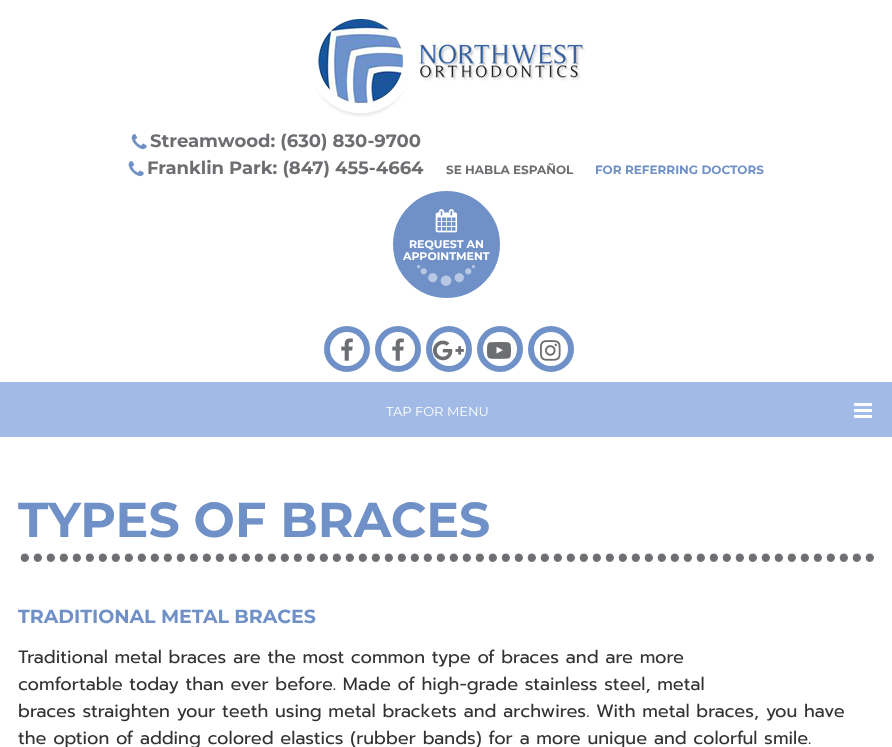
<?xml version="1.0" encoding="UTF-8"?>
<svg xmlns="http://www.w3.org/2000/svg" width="892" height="747">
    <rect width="100%" height="100%" fill="#FFFFFF"/>
    <image x="316" y="19" width="269" height="98" href="img_01.png"/>
    <image x="131" y="134" width="16" height="16" href="img_02.png"/>
    <text x="150" y="147" font-family="Montserrat" font-size="18" font-weight="700" fill="#6D6E71">Streamwood: (630) 830-9700</text>
    <image x="128" y="161" width="16" height="16" href="img_02.png"/>
    <text x="147" y="174" font-family="Montserrat" font-size="18" font-weight="700" fill="#6D6E71">Franklin Park: (847) 455-4664</text>
    <text x="446" y="174" font-family="Montserrat" font-size="12" font-weight="700" fill="#6D6E71">SE HABLA ESPAÑOL</text>
    <text x="595" y="174" font-family="Montserrat" font-size="12" font-weight="700" fill="#7091C8">FOR REFERRING DOCTORS</text>
    <circle cx="446.5" cy="244.5" r="57.5" fill="#7091C8" stroke="#FFFFFF" stroke-width="8"/>
    <image x="435" y="209" width="23" height="24" href="img_03.png"/>
    <text x="409" y="248" font-family="Montserrat" font-size="11" font-weight="700" fill="#FFFFFF">REQUEST AN</text>
    <text x="403" y="260" font-family="Montserrat" font-size="11" font-weight="700" fill="#FFFFFF">APPOINTMENT</text>
    <image x="417" y="265" width="58" height="21" href="img_04.png"/>
    <circle cx="347" cy="349" r="20" fill="none" stroke="#7091C8" stroke-width="6"/>
    <image x="341" y="338" width="12" height="23" href="img_05.png"/>
    <circle cx="398" cy="349" r="20" fill="none" stroke="#7091C8" stroke-width="6"/>
    <image x="392" y="338" width="12" height="23" href="img_05.png"/>
    <circle cx="449" cy="349" r="20" fill="none" stroke="#7091C8" stroke-width="6"/>
    <image x="433" y="340" width="31" height="21" href="img_06.png"/>
    <circle cx="500" cy="349" r="20" fill="none" stroke="#7091C8" stroke-width="6"/>
    <image x="487" y="342" width="24" height="17" href="img_07.png"/>
    <circle cx="551" cy="349" r="20" fill="none" stroke="#7091C8" stroke-width="6"/>
    <image x="540" y="340" width="21" height="21" href="img_08.png"/>
    <rect x="0" y="382" width="892" height="55" fill="#A1BBE6"/>
    <text x="386" y="416" font-family="Montserrat" font-size="13" fill="#FFFFFF">TAP FOR MENU</text>
    <image x="854" y="403" width="18" height="15" href="img_09.png"/>
    <image x="20" y="553" width="854" height="9" href="img_10.png"/>
    <text x="18" y="537" font-family="Montserrat" font-size="49" font-weight="700" fill="#7091C8">TYPES OF BRACES</text>
    <text x="18" y="623" font-family="Montserrat" font-size="19" font-weight="700" fill="#7091C8">TRADITIONAL METAL BRACES</text>
    <text font-family="Prompt" font-size="18" fill="#333333">
        <tspan x="18" y="663">Traditional metal braces are the most common type of braces and are more</tspan>
        <tspan x="18" y="690">comfortable today than ever before. Made of high-grade stainless steel, metal</tspan>
        <tspan x="18" y="717">braces straighten your teeth using metal brackets and archwires. With metal braces, you have</tspan>
        <tspan x="18" y="744">the option of adding colored elastics (rubber bands) for a more unique and colorful smile.</tspan>
    </text>
</svg>
